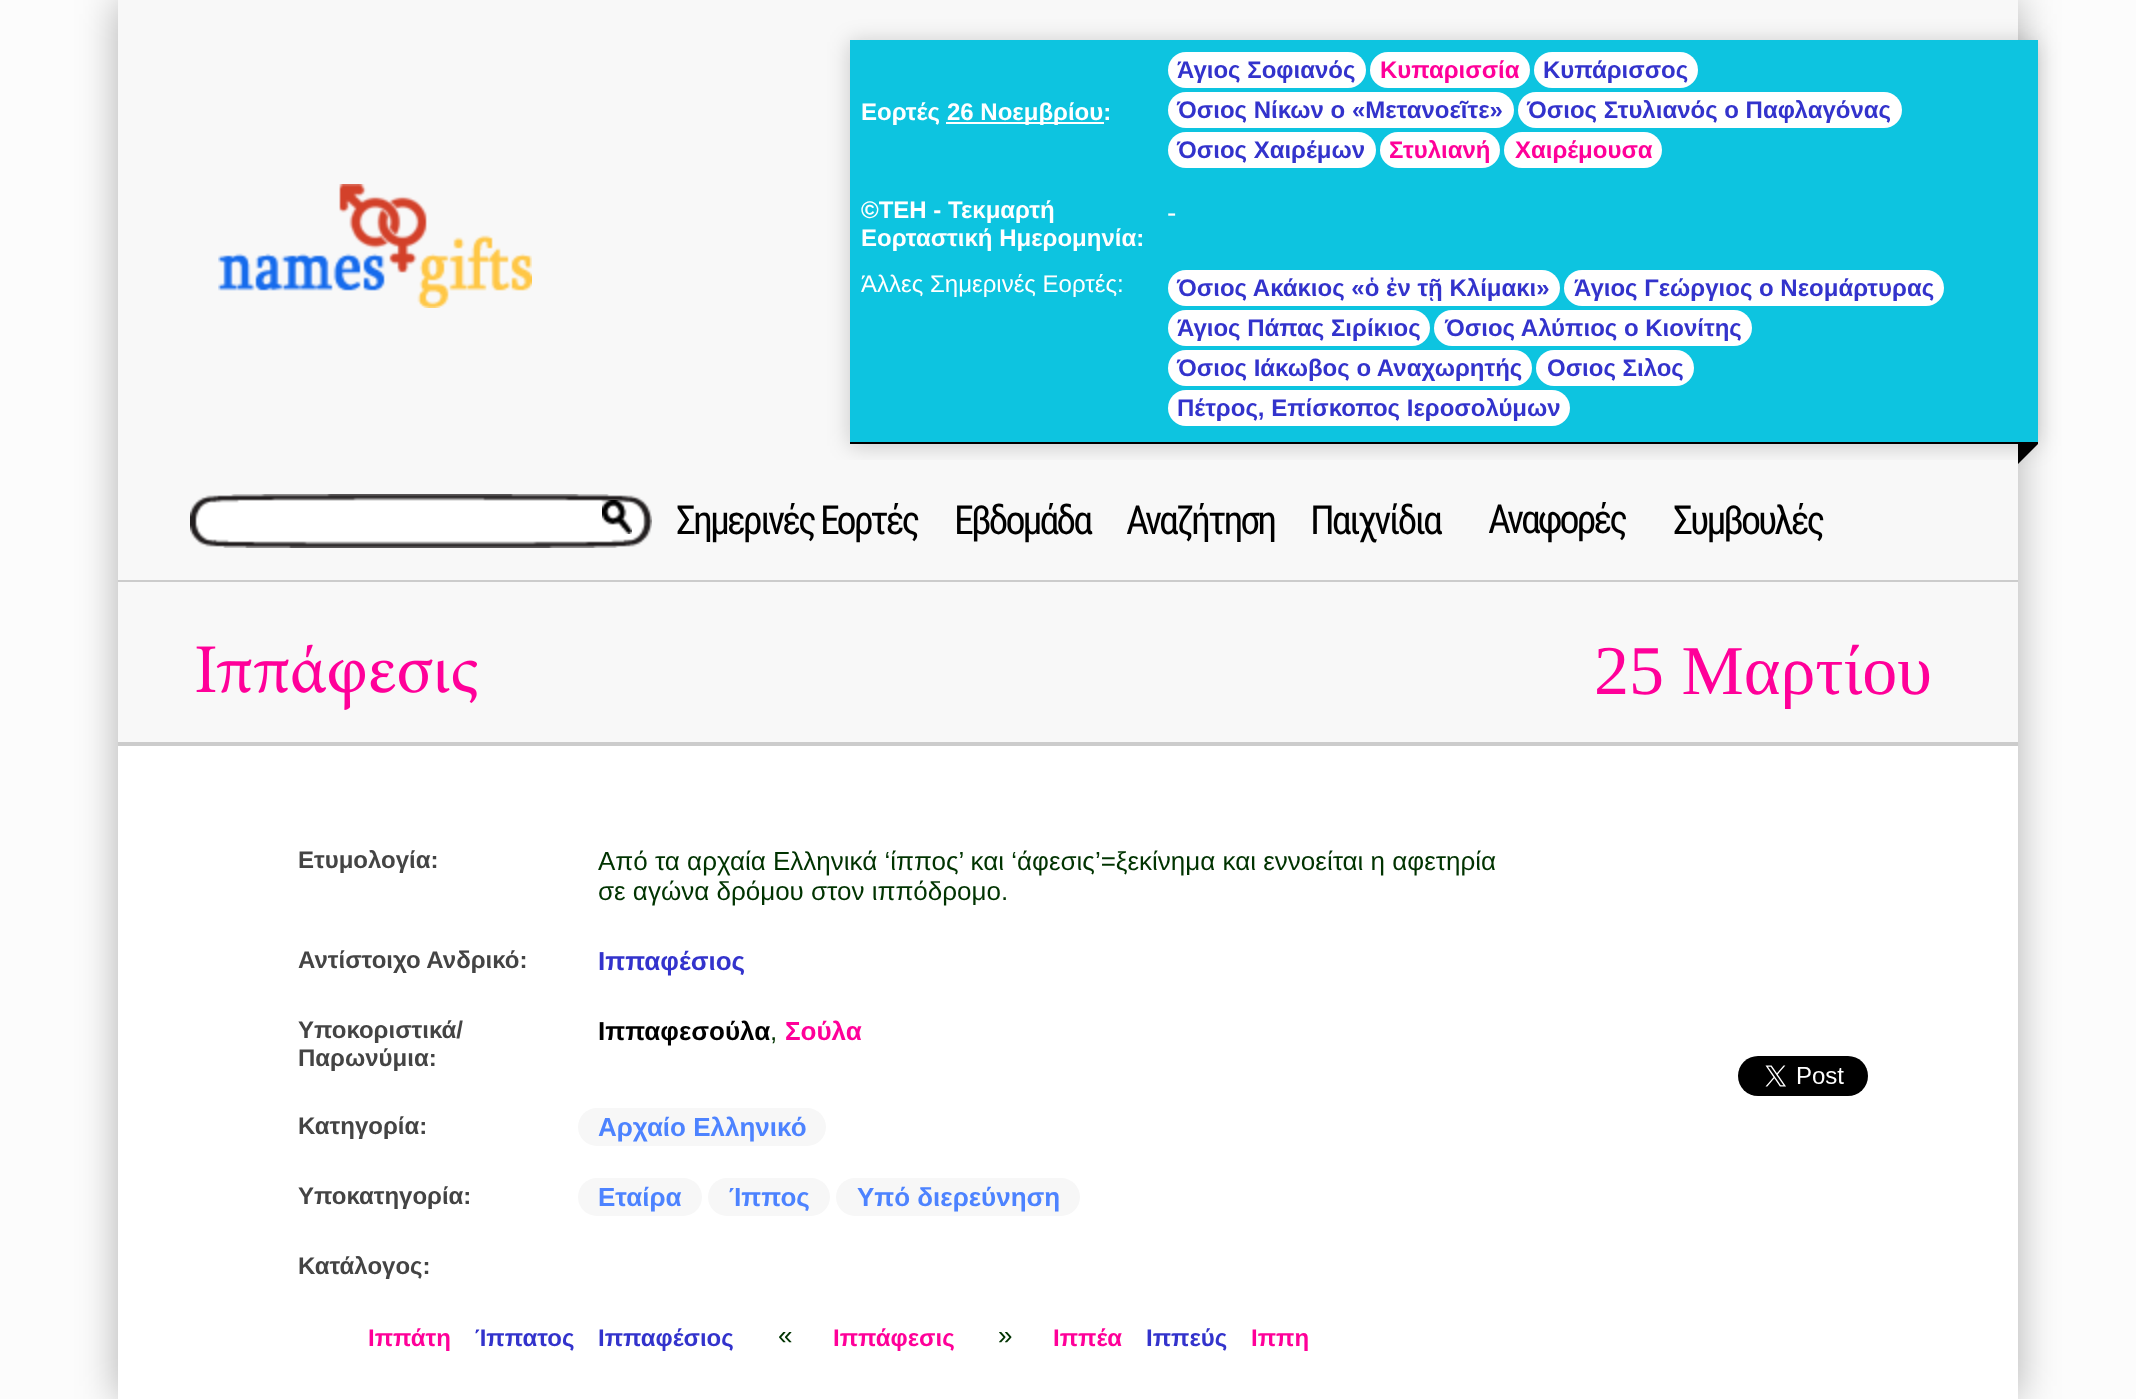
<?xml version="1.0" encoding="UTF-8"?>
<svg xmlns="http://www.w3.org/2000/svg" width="2136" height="1399">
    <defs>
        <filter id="blur1" x="-50%" y="-200%" width="200%" height="500%"><feGaussianBlur stdDeviation="20"/></filter>
        <filter id="blur2" x="-50%" y="-200%" width="200%" height="500%"><feGaussianBlur stdDeviation="11"/></filter>
    </defs>
    <rect width="100%" height="100%" fill="#FCFCFC"/>
    <rect x="118" y="0" width="1900" height="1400" fill="#000000" fill-opacity="0.3" filter="url(#blur1)"/>
    <rect x="118" y="746" width="1900" height="653" fill="#FFFFFF"/>
    <rect x="118" y="0" width="1900" height="460" fill="#F8F8F8"/>
    <image x="218" y="184" width="314" height="124" href="img_01.png"/>
    <rect x="850" y="42" width="1188" height="404" fill="#000000" fill-opacity="0.2" filter="url(#blur2)"/>
    <rect x="850" y="40" width="1188" height="402" fill="#0DC4E0"/>
    <rect x="850" y="442" width="1188" height="2" fill="#000000"/>
    <text x="861" y="120" font-family="Liberation Sans" font-size="24" font-weight="700" fill="#FFFFFF">Εορτές</text>
    <rect x="946" y="122" width="158" height="2" fill="#FFFFFF"/>
    <text x="947" y="120" font-family="Liberation Sans" font-size="24" font-weight="700" fill="#FFFFFF">26 Νοεμβρίου:</text>
    <rect x="1168" y="52" width="198" height="36" rx="18" fill="#FFFFFF"/>
    <text x="1177" y="78" font-family="Liberation Sans" font-size="24" font-weight="700" fill="#3333CC">Άγιος Σοφιανός</text>
    <rect x="1370" y="52" width="160" height="36" rx="18" fill="#FFFFFF"/>
    <text x="1380" y="78" font-family="Liberation Sans" font-size="24" font-weight="700" fill="#FF0099">Κυπαρισσία</text>
    <rect x="1534" y="52" width="164" height="36" rx="18" fill="#FFFFFF"/>
    <text x="1543" y="78" font-family="Liberation Sans" font-size="24" font-weight="700" fill="#3333CC">Κυπάρισσος</text>
    <rect x="1168" y="92" width="346" height="36" rx="18" fill="#FFFFFF"/>
    <text x="1177" y="118" font-family="Liberation Sans" font-size="24" font-weight="700" fill="#3333CC">Όσιος Νίκων ο «Μετανοεῖτε»</text>
    <rect x="1518" y="92" width="384" height="36" rx="18" fill="#FFFFFF"/>
    <text x="1527" y="118" font-family="Liberation Sans" font-size="24" font-weight="700" fill="#3333CC">Όσιος Στυλιανός ο Παφλαγόνας</text>
    <rect x="1168" y="132" width="208" height="36" rx="18" fill="#FFFFFF"/>
    <text x="1177" y="158" font-family="Liberation Sans" font-size="24" font-weight="700" fill="#3333CC">Όσιος Χαιρέμων</text>
    <rect x="1380" y="132" width="120" height="36" rx="18" fill="#FFFFFF"/>
    <text x="1389" y="158" font-family="Liberation Sans" font-size="24" font-weight="700" fill="#FF0099">Στυλιανή</text>
    <rect x="1504" y="132" width="158" height="36" rx="18" fill="#FFFFFF"/>
    <text x="1515" y="158" font-family="Liberation Sans" font-size="24" font-weight="700" fill="#FF0099">Χαιρέμουσα</text>
    <text font-family="Liberation Sans" font-size="24" font-weight="700" fill="#FFFFFF">
        <tspan x="861" y="218">©ΤΕΗ - Τεκμαρτή</tspan>
        <tspan x="861" y="246">Εορταστική Ημερομηνία:</tspan>
    </text>
    <text x="1167" y="222" font-family="Liberation Sans" font-size="28" fill="#FFFFFF">-</text>
    <text x="861" y="292" font-family="Liberation Sans" font-size="24" fill="#FFFFFF">Άλλες Σημερινές Εορτές:</text>
    <rect x="1168" y="270" width="392" height="36" rx="18" fill="#FFFFFF"/>
    <text x="1177" y="296" font-family="Liberation Sans" font-size="24" font-weight="700" fill="#3333CC">Όσιος Ακάκιος «ὁ ἐν τῇ Κλίμακι»</text>
    <rect x="1564" y="270" width="380" height="36" rx="18" fill="#FFFFFF"/>
    <text x="1574" y="296" font-family="Liberation Sans" font-size="24" font-weight="700" fill="#3333CC">Άγιος Γεώργιος ο Νεομάρτυρας</text>
    <rect x="1168" y="310" width="262" height="36" rx="18" fill="#FFFFFF"/>
    <text x="1177" y="336" font-family="Liberation Sans" font-size="24" font-weight="700" fill="#3333CC">Άγιος Πάπας Σιρίκιος</text>
    <rect x="1434" y="310" width="318" height="36" rx="18" fill="#FFFFFF"/>
    <text x="1445" y="336" font-family="Liberation Sans" font-size="24" font-weight="700" fill="#3333CC">Όσιος Αλύπιος ο Κιονίτης</text>
    <rect x="1168" y="350" width="364" height="36" rx="18" fill="#FFFFFF"/>
    <text x="1177" y="376" font-family="Liberation Sans" font-size="24" font-weight="700" fill="#3333CC">Όσιος Ιάκωβος ο Αναχωρητής</text>
    <rect x="1536" y="350" width="158" height="36" rx="18" fill="#FFFFFF"/>
    <text x="1547" y="376" font-family="Liberation Sans" font-size="24" font-weight="700" fill="#3333CC">Οσιος Σιλος</text>
    <rect x="1168" y="390" width="402" height="36" rx="18" fill="#FFFFFF"/>
    <text x="1177" y="416" font-family="Liberation Sans" font-size="24" font-weight="700" fill="#3333CC">Πέτρος, Επίσκοπος Ιεροσολύμων</text>
    <path d="M 2018 444 H 2038 L 2018 464 Z" fill="#000000"/>
    <rect x="118" y="460" width="1900" height="120" fill="#F8F8F8"/>
    <image x="190" y="494" width="462" height="54" href="img_02.png"/>
    <image x="602" y="500" width="30" height="34" href="img_03.png"/>
    <text x="676" y="534" font-family="Roboto Condensed" font-size="40" letter-spacing="-3" fill="#000000">Σημερινές Εορτές</text>
    <text x="954" y="534" font-family="Roboto Condensed" font-size="40" letter-spacing="-3" fill="#000000">Εβδομάδα</text>
    <text x="1126" y="534" font-family="Roboto Condensed" font-size="40" letter-spacing="-3" fill="#000000">Αναζήτηση</text>
    <text x="1310" y="534" font-family="Roboto Condensed" font-size="40" letter-spacing="-3" fill="#000000">Παιχνίδια</text>
    <text x="1488" y="533" font-family="Roboto Condensed" font-size="40" letter-spacing="-3" fill="#000000">Αναφορές</text>
    <text x="1673" y="534" font-family="Roboto Condensed" font-size="40" letter-spacing="-3" fill="#000000">Συμβουλές</text>
    <rect x="118" y="582" width="1900" height="160" fill="#F8F8F8"/>
    <rect x="118" y="580" width="1900" height="2" fill="#CCCCCC"/>
    <rect x="118" y="742" width="1900" height="4" fill="#CCCCCC"/>
    <image x="196" y="644" width="281" height="66" href="img_04.png"/>
    <text x="1594" y="694" font-family="Liberation Serif" font-size="70" fill="#FF0099">25 Μαρτίου</text>
    <text x="298" y="868" font-family="Liberation Sans" font-size="24" font-weight="700" fill="#444444">Ετυμολογία:</text>
    <text font-family="Liberation Sans" font-size="26" fill="#003300">
        <tspan x="598" y="870">Από τα αρχαία Ελληνικά ‘ίππος’ και ‘άφεσις’=ξεκίνημα και εννοείται η αφετηρία</tspan>
        <tspan x="598" y="900">σε αγώνα δρόμου στον ιππόδρομο.</tspan>
    </text>
    <text x="298" y="968" font-family="Liberation Sans" font-size="24" font-weight="700" fill="#444444">Αντίστοιχο Ανδρικό:</text>
    <text x="598" y="970" font-family="Liberation Sans" font-size="26" font-weight="700" fill="#3333CC">Ιππαφέσιος</text>
    <text font-family="Liberation Sans" font-size="24" font-weight="700" fill="#444444">
        <tspan x="298" y="1038">Υποκοριστικά/</tspan>
        <tspan x="298" y="1066">Παρωνύμια:</tspan>
    </text>
    <text x="598" y="1040" font-family="Liberation Sans" font-size="26" font-weight="700" fill="#000000">Ιππαφεσούλα</text>
    <text x="770" y="1040" font-family="Liberation Sans" font-size="26" fill="#003300">,</text>
    <text x="785" y="1040" font-family="Liberation Sans" font-size="26" font-weight="700" fill="#FF0099">Σούλα</text>
    <text x="298" y="1134" font-family="Liberation Sans" font-size="24" font-weight="700" fill="#444444">Κατηγορία:</text>
    <rect x="578" y="1108" width="248" height="38" rx="19" fill="#F7F7F7"/>
    <text x="598" y="1136" font-family="Liberation Sans" font-size="26" font-weight="700" fill="#4D83FF">Αρχαίο Ελληνικό</text>
    <text x="298" y="1204" font-family="Liberation Sans" font-size="24" font-weight="700" fill="#444444">Υποκατηγορία:</text>
    <rect x="578" y="1178" width="124" height="38" rx="19" fill="#F7F7F7"/>
    <text x="598" y="1206" font-family="Liberation Sans" font-size="26" font-weight="700" fill="#4D83FF">Εταίρα</text>
    <rect x="708" y="1178" width="122" height="38" rx="19" fill="#F7F7F7"/>
    <text x="729" y="1206" font-family="Liberation Sans" font-size="26" font-weight="700" fill="#4D83FF">Ίππος</text>
    <rect x="836" y="1178" width="244" height="38" rx="19" fill="#F7F7F7"/>
    <text x="857" y="1206" font-family="Liberation Sans" font-size="26" font-weight="700" fill="#4D83FF">Υπό διερεύνηση</text>
    <text x="298" y="1274" font-family="Liberation Sans" font-size="24" font-weight="700" fill="#444444">Κατάλογος:</text>
    <text x="368" y="1346" font-family="Liberation Sans" font-size="24" font-weight="700" fill="#FF0099">Ιππάτη</text>
    <text x="475" y="1346" font-family="Liberation Sans" font-size="24" font-weight="700" fill="#3333CC">Ίππατος</text>
    <text x="598" y="1346" font-family="Liberation Sans" font-size="24" font-weight="700" fill="#3333CC">Ιππαφέσιος</text>
    <text x="778" y="1344" font-family="Liberation Sans" font-size="26" fill="#003300">«</text>
    <text x="833" y="1346" font-family="Liberation Sans" font-size="24" font-weight="700" fill="#FF0099">Ιππάφεσις</text>
    <text x="998" y="1344" font-family="Liberation Sans" font-size="26" fill="#003300">»</text>
    <text x="1053" y="1346" font-family="Liberation Sans" font-size="24" font-weight="700" fill="#FF0099">Ιππέα</text>
    <text x="1146" y="1346" font-family="Liberation Sans" font-size="24" font-weight="700" fill="#3333CC">Ιππεύς</text>
    <text x="1251" y="1346" font-family="Liberation Sans" font-size="24" font-weight="700" fill="#FF0099">Ιππη</text>
    <image x="1738" y="1056" width="130" height="40" href="img_05.png"/>
</svg>
